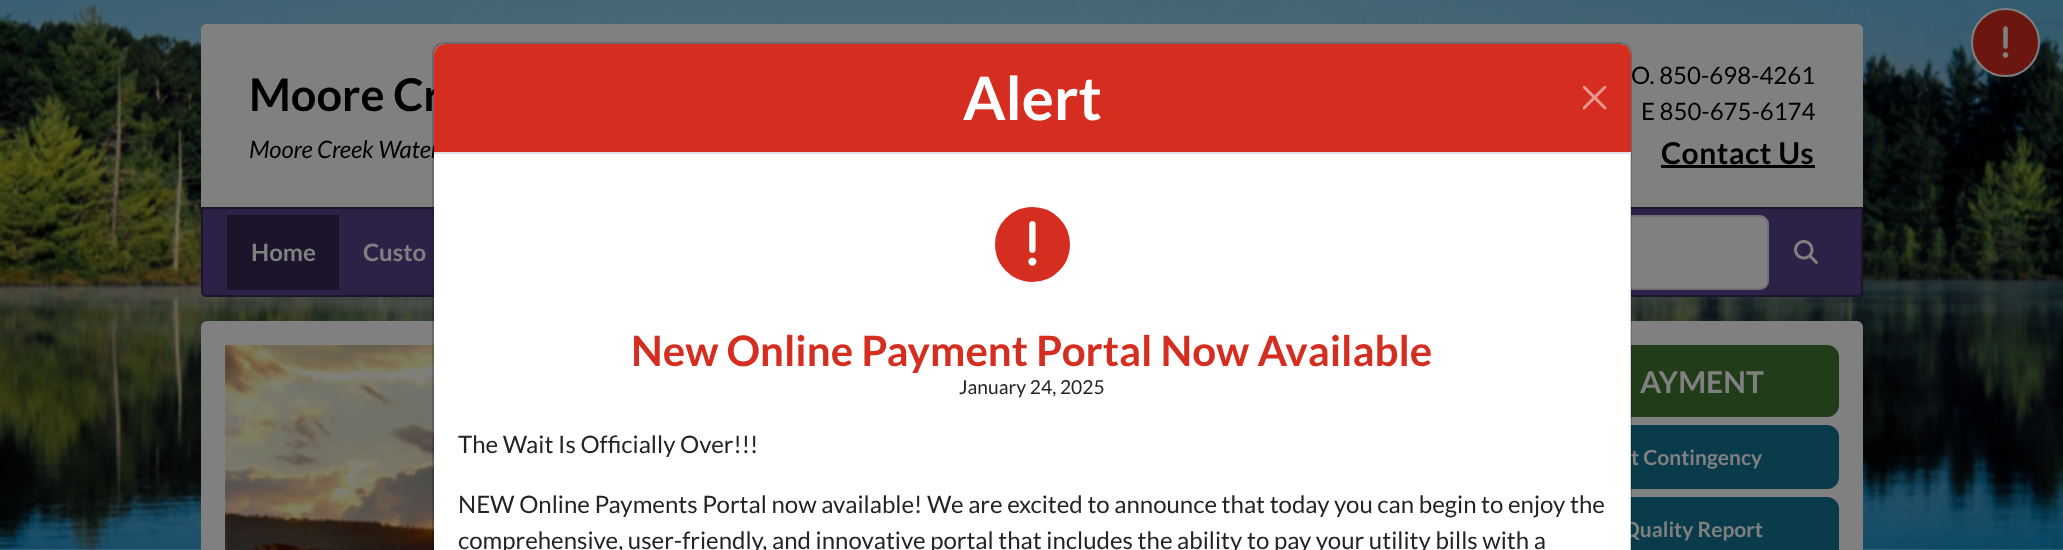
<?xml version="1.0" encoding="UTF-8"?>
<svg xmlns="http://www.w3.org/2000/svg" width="2063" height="550">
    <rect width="100%" height="100%" fill="#FFFFFF"/>
    <image x="0" y="0" width="2063" height="550" href="img_01.png"/>
    <circle cx="2005.5" cy="42.5" r="33.5" fill="#6B1710" stroke="#808080" stroke-width="2"/>
    <image x="2002" y="26" width="7" height="32" href="img_02.png"/>
    <path d="M 207 24 H 1857 C 1860.5 24 1863 26.5 1863 30 V 207 H 201 V 30 C 201 26.5 203.5 24 207 24 Z" fill="#808080"/>
    <text x="249" y="111" font-family="Lato" font-size="45" font-weight="700" fill="#000000">Moore Cr</text>
    <text x="249" y="158" font-family="Lato" font-size="24" font-style="italic" fill="#000000">Moore Creek Water</text>
    <text x="1631" y="84" font-family="Lato" font-size="24" fill="#000000">O. 850-698-4261</text>
    <text x="1641" y="120" font-family="Lato" font-size="24" fill="#000000">E 850-675-6174</text>
    <text x="1661" y="164" font-family="Lato" font-size="30" font-weight="700" letter-spacing="0.5" fill="#000000">Contact Us</text>
    <rect x="1661" y="165" width="154" height="3" fill="#000000"/>
    <path d="M 202 208 H 1862 V 291 C 1862 294 1860 296 1857 296 H 207 C 204 296 202 294 202 291 Z" fill="#2E2148" stroke="#1C142B" stroke-width="2"/>
    <rect x="227" y="215" width="112" height="75" fill="#1C142B"/>
    <text x="251" y="261" font-family="Lato" font-size="24" font-weight="700" fill="#808080">Home</text>
    <text x="363" y="261" font-family="Lato" font-size="24" font-weight="700" fill="#808080">Custo</text>
    <rect x="1470" y="216" width="298" height="73" rx="8" fill="#808080" stroke="#6F7173" stroke-width="2"/>
    <image x="1794" y="240" width="24" height="24" href="img_03.png"/>
    <rect x="201" y="321" width="1235" height="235" rx="6" fill="#808080"/>
    <rect x="1460" y="321" width="403" height="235" rx="6" fill="#808080"/>
    <rect x="1485" y="346" width="353" height="70" rx="11" fill="#213C19" stroke="#213C19" stroke-width="2"/>
    <rect x="1485" y="426" width="353" height="62" rx="11" fill="#093B4B" stroke="#093B4B" stroke-width="2"/>
    <rect x="1485" y="498" width="353" height="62" rx="11" fill="#093B4B" stroke="#093B4B" stroke-width="2"/>
    <text x="1623" y="537" font-family="Lato" font-size="21" font-weight="700" fill="#808080">Quality Report</text>
    <path d="M 445 44 H 1620 C 1626 44 1631 49 1631 55 V 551 H 434 V 55 C 434 49 439 44 445 44 Z" fill="#FFFFFF"/>
    <image x="225" y="345" width="209" height="205" href="img_06.png"/>
    <text x="1631" y="465" font-family="Lato" font-size="21" font-weight="700" fill="#808080">t Contingency</text>
    <rect x="433" y="43" width="1198" height="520" rx="11" fill="none" stroke="#000000" stroke-opacity="0.18" stroke-width="2"/>
    <path d="M 445 44 H 1620 C 1626 44 1631 49 1631 55 V 153 H 434 V 55 C 434 49 439 44 445 44 Z" fill="#D52E20"/>
    <rect x="434" y="152" width="1197" height="2" fill="#DEE2E6"/>
    <text x="963" y="120" font-family="Lato" font-size="60" font-weight="700" fill="#FFFFFF">Alert</text>
    <image x="1583" y="86" width="24" height="24" href="img_04.png"/>
    <circle cx="1032.5" cy="244.5" r="36.5" fill="#D52E20" stroke="#D52E20" stroke-width="2"/>
    <image x="1028" y="221" width="9" height="45" href="img_05.png"/>
    <text x="631" y="366" font-family="Lato" font-size="42" font-weight="700" fill="#D52E20">New Online Payment Portal Now Available</text>
    <text x="959" y="394" font-family="Lato" font-size="19.25" fill="#212529">January 24, 2025</text>
    <text x="458" y="453" font-family="Lato" font-size="24" fill="#212529">The Wait Is Officially Over!!!</text>
    <text font-family="Lato" font-size="24" fill="#212529">
        <tspan x="458" y="513">NEW Online Payments Portal now available! We are excited to announce that today you can begin to enjoy the</tspan>
        <tspan x="458" y="549">comprehensive, user-friendly, and innovative portal that includes the ability to pay your utility bills with a</tspan>
    </text>
    <text x="1640" y="393" font-family="Lato" font-size="30" font-weight="700" fill="#808080">AYMENT</text>
</svg>
